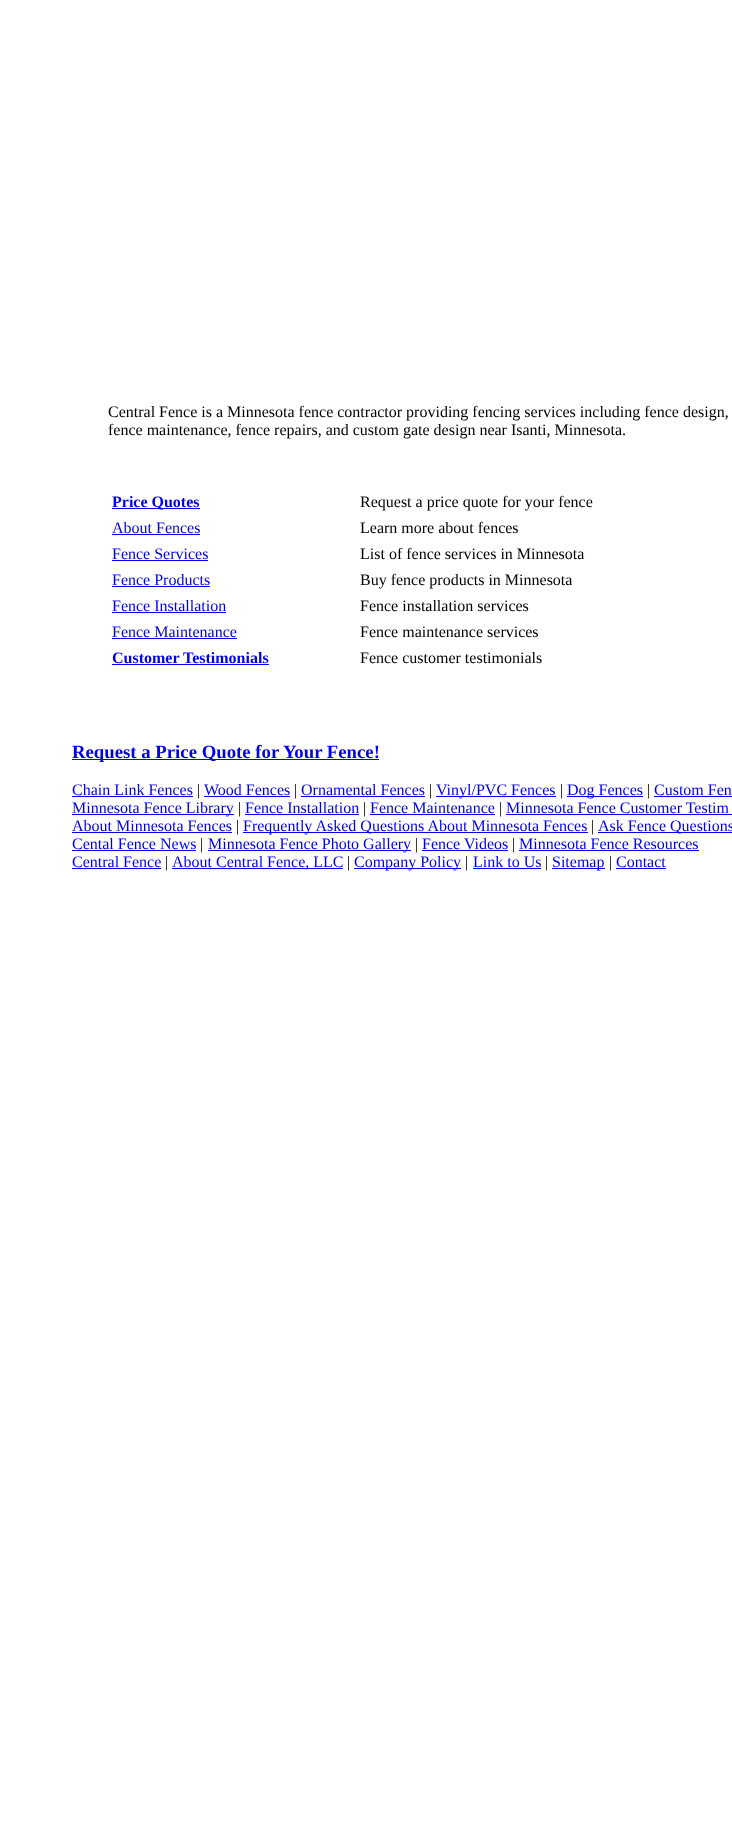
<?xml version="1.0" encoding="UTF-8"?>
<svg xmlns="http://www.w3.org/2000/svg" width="732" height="1840">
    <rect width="100%" height="100%" fill="#FFFFFF"/>
    <text font-family="Liberation Serif" font-size="16" fill="#000000">
        <tspan x="108" y="417">Central Fence is a Minnesota fence contractor providing fencing services including fence design,</tspan>
        <tspan x="108" y="435">fence maintenance, fence repairs, and custom gate design near Isanti, Minnesota.</tspan>
    </text>
    <rect x="112" y="508" width="88" height="1" fill="#0000EE"/>
    <text x="112" y="507" font-family="Liberation Serif" font-size="16" font-weight="700" fill="#0000EE">Price Quotes</text>
    <text x="360" y="507" font-family="Liberation Serif" font-size="16" fill="#000000">Request a price quote for your fence</text>
    <text x="112" y="533" font-family="Liberation Serif" font-size="16" fill="#0000EE">About Fences</text>
    <rect x="112" y="534" width="88" height="1" fill="#0000EE"/>
    <text x="360" y="533" font-family="Liberation Serif" font-size="16" fill="#000000">Learn more about fences</text>
    <text x="112" y="559" font-family="Liberation Serif" font-size="16" fill="#0000EE">Fence Services</text>
    <rect x="112" y="560" width="96" height="1" fill="#0000EE"/>
    <text x="360" y="559" font-family="Liberation Serif" font-size="16" fill="#000000">List of fence services in Minnesota</text>
    <text x="112" y="585" font-family="Liberation Serif" font-size="16" fill="#0000EE">Fence Products</text>
    <rect x="112" y="586" width="98" height="1" fill="#0000EE"/>
    <text x="360" y="585" font-family="Liberation Serif" font-size="16" fill="#000000">Buy fence products in Minnesota</text>
    <text x="112" y="611" font-family="Liberation Serif" font-size="16" fill="#0000EE">Fence Installation</text>
    <rect x="112" y="612" width="114" height="1" fill="#0000EE"/>
    <text x="360" y="611" font-family="Liberation Serif" font-size="16" fill="#000000">Fence installation services</text>
    <text x="112" y="637" font-family="Liberation Serif" font-size="16" fill="#0000EE">Fence Maintenance</text>
    <rect x="112" y="638" width="125" height="1" fill="#0000EE"/>
    <text x="360" y="637" font-family="Liberation Serif" font-size="16" fill="#000000">Fence maintenance services</text>
    <text x="112" y="663" font-family="Liberation Serif" font-size="16" font-weight="700" fill="#0000EE">Customer Testimonials</text>
    <rect x="112" y="664" width="157" height="1" fill="#0000EE"/>
    <text x="360" y="663" font-family="Liberation Serif" font-size="16" fill="#000000">Fence customer testimonials</text>
    <rect x="72" y="759" width="307" height="1" fill="#0000EE"/>
    <text x="72" y="758" font-family="Liberation Serif" font-size="18.75" font-weight="700" fill="#0000EE">Request a Price Quote for Your Fence!</text>
    <text x="72" y="795" font-family="Liberation Serif" font-size="16" fill="#0000EE">Chain Link Fences</text>
    <rect x="72" y="796" width="121" height="1" fill="#0000EE"/>
    <text x="197" y="795" font-family="Liberation Serif" font-size="16" fill="#000000">|</text>
    <text x="204" y="795" font-family="Liberation Serif" font-size="16" fill="#0000EE">Wood Fences</text>
    <rect x="204" y="796" width="86" height="1" fill="#0000EE"/>
    <text x="294" y="795" font-family="Liberation Serif" font-size="16" fill="#000000">|</text>
    <text x="301" y="795" font-family="Liberation Serif" font-size="16" fill="#0000EE">Ornamental Fences</text>
    <rect x="301" y="796" width="124" height="1" fill="#0000EE"/>
    <text x="429" y="795" font-family="Liberation Serif" font-size="16" fill="#000000">|</text>
    <rect x="436" y="796" width="120" height="1" fill="#0000EE"/>
    <text x="436" y="795" font-family="Liberation Serif" font-size="16" fill="#0000EE">Vinyl/PVC Fences</text>
    <text x="560" y="795" font-family="Liberation Serif" font-size="16" fill="#000000">|</text>
    <rect x="567" y="796" width="76" height="1" fill="#0000EE"/>
    <text x="567" y="795" font-family="Liberation Serif" font-size="16" fill="#0000EE">Dog Fences</text>
    <text x="647" y="795" font-family="Liberation Serif" font-size="16" fill="#000000">|</text>
    <text x="654" y="795" font-family="Liberation Serif" font-size="16" fill="#0000EE">Custom Fen</text>
    <rect x="654" y="796" width="78" height="1" fill="#0000EE"/>
    <rect x="72" y="814" width="162" height="1" fill="#0000EE"/>
    <text x="72" y="813" font-family="Liberation Serif" font-size="16" fill="#0000EE">Minnesota Fence Library</text>
    <text x="238" y="813" font-family="Liberation Serif" font-size="16" fill="#000000">|</text>
    <text x="245" y="813" font-family="Liberation Serif" font-size="16" fill="#0000EE">Fence Installation</text>
    <rect x="245" y="814" width="114" height="1" fill="#0000EE"/>
    <text x="363" y="813" font-family="Liberation Serif" font-size="16" fill="#000000">|</text>
    <text x="370" y="813" font-family="Liberation Serif" font-size="16" fill="#0000EE">Fence Maintenance</text>
    <rect x="370" y="814" width="125" height="1" fill="#0000EE"/>
    <text x="499" y="813" font-family="Liberation Serif" font-size="16" fill="#000000">|</text>
    <text x="506" y="813" font-family="Liberation Serif" font-size="16" fill="#0000EE">Minnesota Fence Customer Testim</text>
    <rect x="506" y="814" width="226" height="1" fill="#0000EE"/>
    <text x="72" y="831" font-family="Liberation Serif" font-size="16" fill="#0000EE">About Minnesota Fences</text>
    <rect x="72" y="832" width="160" height="1" fill="#0000EE"/>
    <text x="236" y="831" font-family="Liberation Serif" font-size="16" fill="#000000">|</text>
    <rect x="243" y="832" width="345" height="1" fill="#0000EE"/>
    <text x="243" y="831" font-family="Liberation Serif" font-size="16" fill="#0000EE">Frequently Asked Questions About Minnesota Fences</text>
    <text x="591" y="831" font-family="Liberation Serif" font-size="16" fill="#000000">|</text>
    <rect x="598" y="832" width="134" height="1" fill="#0000EE"/>
    <text x="598" y="831" font-family="Liberation Serif" font-size="16" fill="#0000EE">Ask Fence Questions</text>
    <text x="72" y="849" font-family="Liberation Serif" font-size="16" fill="#0000EE">Cental Fence News</text>
    <rect x="72" y="850" width="124" height="1" fill="#0000EE"/>
    <text x="200" y="849" font-family="Liberation Serif" font-size="16" fill="#000000">|</text>
    <rect x="208" y="850" width="203" height="1" fill="#0000EE"/>
    <text x="208" y="849" font-family="Liberation Serif" font-size="16" fill="#0000EE">Minnesota Fence Photo Gallery</text>
    <text x="415" y="849" font-family="Liberation Serif" font-size="16" fill="#000000">|</text>
    <text x="422" y="849" font-family="Liberation Serif" font-size="16" fill="#0000EE">Fence Videos</text>
    <rect x="422" y="850" width="86" height="1" fill="#0000EE"/>
    <text x="512" y="849" font-family="Liberation Serif" font-size="16" fill="#000000">|</text>
    <text x="519" y="849" font-family="Liberation Serif" font-size="16" fill="#0000EE">Minnesota Fence Resources</text>
    <rect x="519" y="850" width="180" height="1" fill="#0000EE"/>
    <text x="72" y="867" font-family="Liberation Serif" font-size="16" fill="#0000EE">Central Fence</text>
    <rect x="72" y="868" width="89" height="1" fill="#0000EE"/>
    <text x="165" y="867" font-family="Liberation Serif" font-size="16" fill="#000000">|</text>
    <rect x="172" y="868" width="171" height="1" fill="#0000EE"/>
    <text x="172" y="867" font-family="Liberation Serif" font-size="16" fill="#0000EE">About Central Fence, LLC</text>
    <text x="347" y="867" font-family="Liberation Serif" font-size="16" fill="#000000">|</text>
    <rect x="354" y="868" width="107" height="1" fill="#0000EE"/>
    <text x="354" y="867" font-family="Liberation Serif" font-size="16" fill="#0000EE">Company Policy</text>
    <text x="465" y="867" font-family="Liberation Serif" font-size="16" fill="#000000">|</text>
    <text x="473" y="867" font-family="Liberation Serif" font-size="16" fill="#0000EE">Link to Us</text>
    <rect x="473" y="868" width="68" height="1" fill="#0000EE"/>
    <text x="545" y="867" font-family="Liberation Serif" font-size="16" fill="#000000">|</text>
    <rect x="552" y="868" width="53" height="1" fill="#0000EE"/>
    <text x="552" y="867" font-family="Liberation Serif" font-size="16" fill="#0000EE">Sitemap</text>
    <text x="609" y="867" font-family="Liberation Serif" font-size="16" fill="#000000">|</text>
    <text x="616" y="867" font-family="Liberation Serif" font-size="16" fill="#0000EE">Contact</text>
    <rect x="616" y="868" width="50" height="1" fill="#0000EE"/>
</svg>
